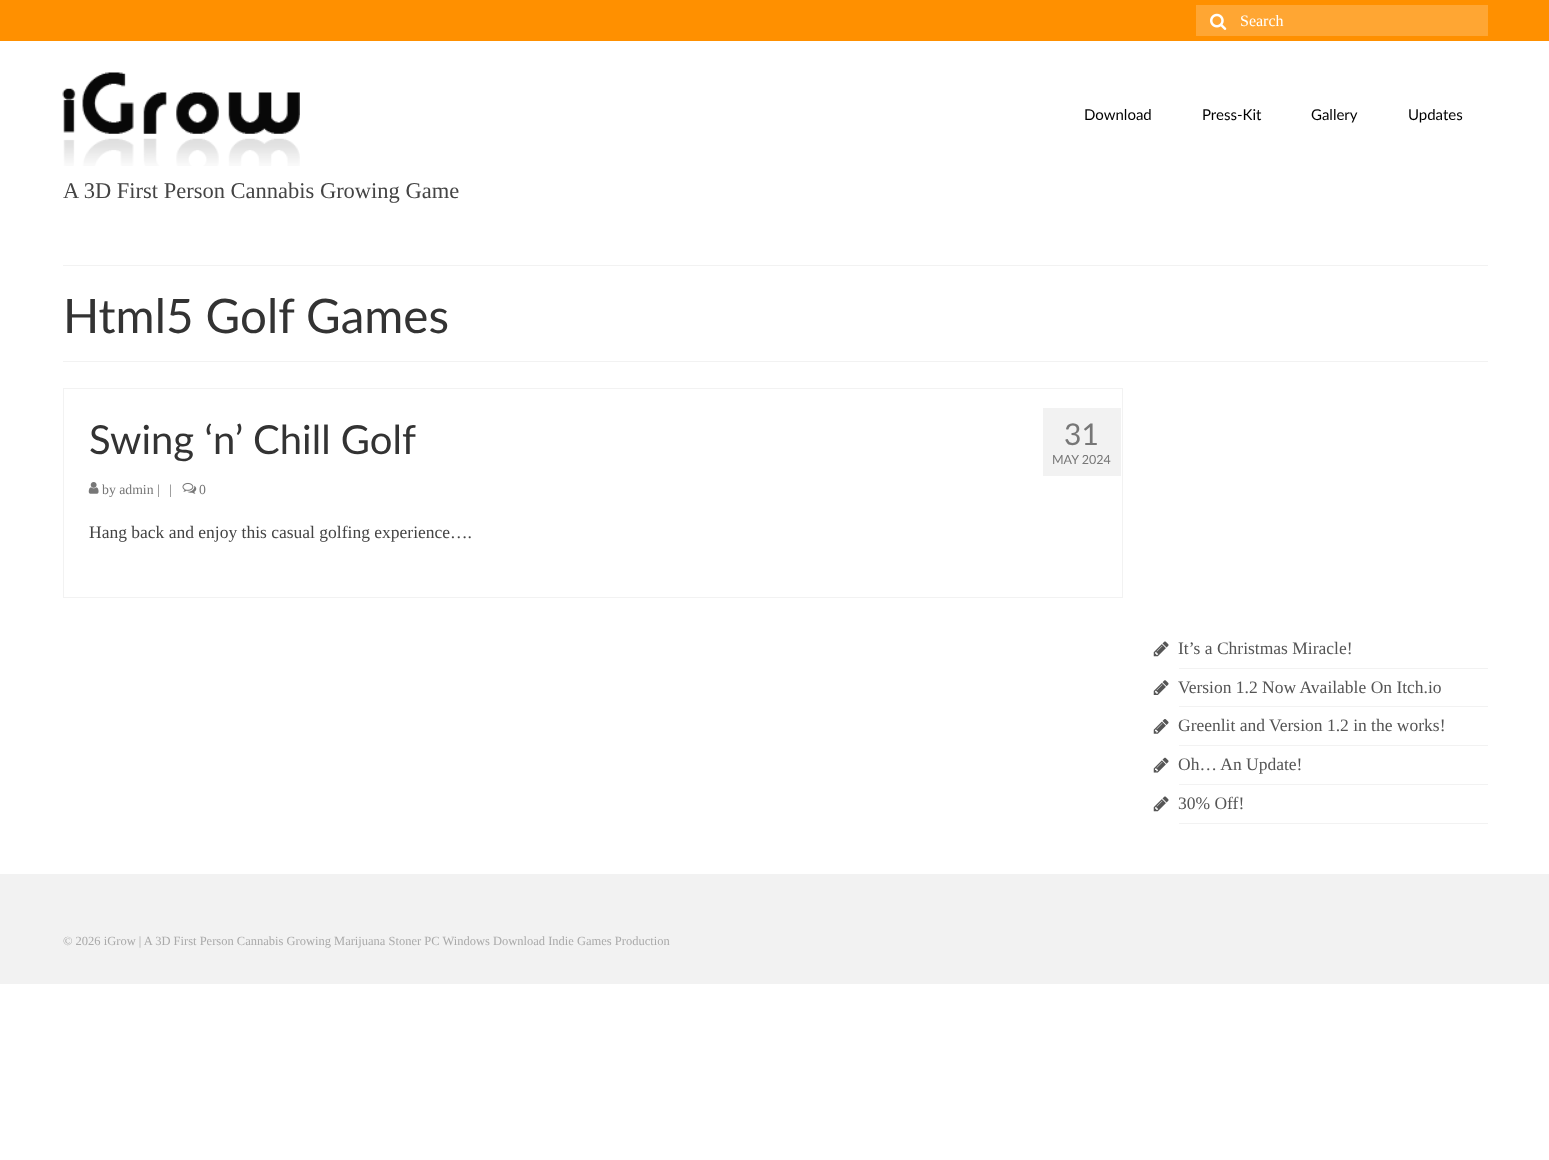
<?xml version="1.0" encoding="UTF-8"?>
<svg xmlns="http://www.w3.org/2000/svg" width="1549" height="1160">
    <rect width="100%" height="100%" fill="#FFFFFF"/>
    <rect x="0" y="0" width="1549" height="41" fill="#FF9000"/>
    <rect x="1196" y="5" width="292" height="31" fill="#FFA633"/>
    <image x="1210" y="13" width="17" height="17" href="img_01.png"/>
    <text x="1240" y="26" font-family="Liberation Serif" font-size="16" fill="#FFFFFF">Search</text>
    <text x="1084" y="120" font-family="Lato" font-size="15" fill="#000000">Download</text>
    <text x="1202" y="120" font-family="Lato" font-size="15" fill="#000000">Press-Kit</text>
    <text x="1311" y="120" font-family="Lato" font-size="15" fill="#000000">Gallery</text>
    <text x="1408" y="120" font-family="Lato" font-size="15" fill="#000000">Updates</text>
    <image x="62" y="72" width="238" height="94" href="img_02.png"/>
    <text x="63" y="198" font-family="Liberation Serif" font-size="22.5" fill="#444444">A 3D First Person Cannabis Growing Game</text>
    <rect x="63" y="265" width="1425" height="1" fill="#F2F2F2"/>
    <rect x="63" y="361" width="1425" height="1" fill="#F2F2F2"/>
    <text x="63" y="333" font-family="Lato" font-size="47.5" fill="#333333">Html5 Golf Games</text>
    <rect x="63.5" y="388.5" width="1059" height="209" fill="none" stroke="#F2F2F2"/>
    <text x="89" y="454" font-family="Lato" font-size="40" fill="#333333">Swing ‘n’ Chill Golf</text>
    <image x="88" y="482" width="11" height="12" href="img_03.png"/>
    <text x="102" y="494" font-family="Liberation Serif" font-size="13.75" fill="#777777">by admin |</text>
    <text x="169" y="494" font-family="Liberation Serif" font-size="13.75" fill="#777777">|</text>
    <image x="182" y="482" width="15" height="12" href="img_04.png"/>
    <text x="199" y="494" font-family="Liberation Serif" font-size="13.75" fill="#777777">0</text>
    <rect x="1043" y="408" width="78" height="68" fill="#F2F2F2"/>
    <text x="1064" y="445" font-family="Lato" font-size="30" fill="#777777">31</text>
    <text x="1052" y="464" font-family="Lato" font-size="12.5" fill="#777777">MAY 2024</text>
    <text x="89" y="538" font-family="Liberation Serif" font-size="17.5" fill="#444444">Hang back and enjoy this casual golfing experience….</text>
    <rect x="1179" y="668" width="309" height="1" fill="#F2F2F2"/>
    <image x="1153" y="641" width="16" height="16" href="img_05.png"/>
    <text x="1178" y="654" font-family="Liberation Serif" font-size="17.5" fill="#555555">It’s a Christmas Miracle!</text>
    <rect x="1179" y="706" width="309" height="1" fill="#F2F2F2"/>
    <image x="1153" y="680" width="16" height="15" href="img_06.png"/>
    <text x="1178" y="693" font-family="Liberation Serif" font-size="17.5" fill="#555555">Version 1.2 Now Available On Itch.io</text>
    <rect x="1179" y="745" width="309" height="1" fill="#F2F2F2"/>
    <image x="1153" y="719" width="16" height="15" href="img_07.png"/>
    <text x="1178" y="731" font-family="Liberation Serif" font-size="17.5" fill="#555555">Greenlit and Version 1.2 in the works!</text>
    <rect x="1179" y="784" width="309" height="1" fill="#F2F2F2"/>
    <image x="1153" y="757" width="16" height="16" href="img_08.png"/>
    <text x="1178" y="770" font-family="Liberation Serif" font-size="17.5" fill="#555555">Oh… An Update!</text>
    <rect x="1179" y="823" width="309" height="1" fill="#F2F2F2"/>
    <image x="1153" y="796" width="16" height="16" href="img_05.png"/>
    <text x="1178" y="809" font-family="Liberation Serif" font-size="17.5" fill="#555555">30% Off!</text>
    <rect x="0" y="874" width="1549" height="110" fill="#F2F2F2"/>
    <text x="63" y="945" font-family="Liberation Serif" font-size="12.5" fill="#AAAAAA">© 2026 iGrow | A 3D First Person Cannabis Growing Marijuana Stoner PC Windows Download Indie Games Production</text>
</svg>
